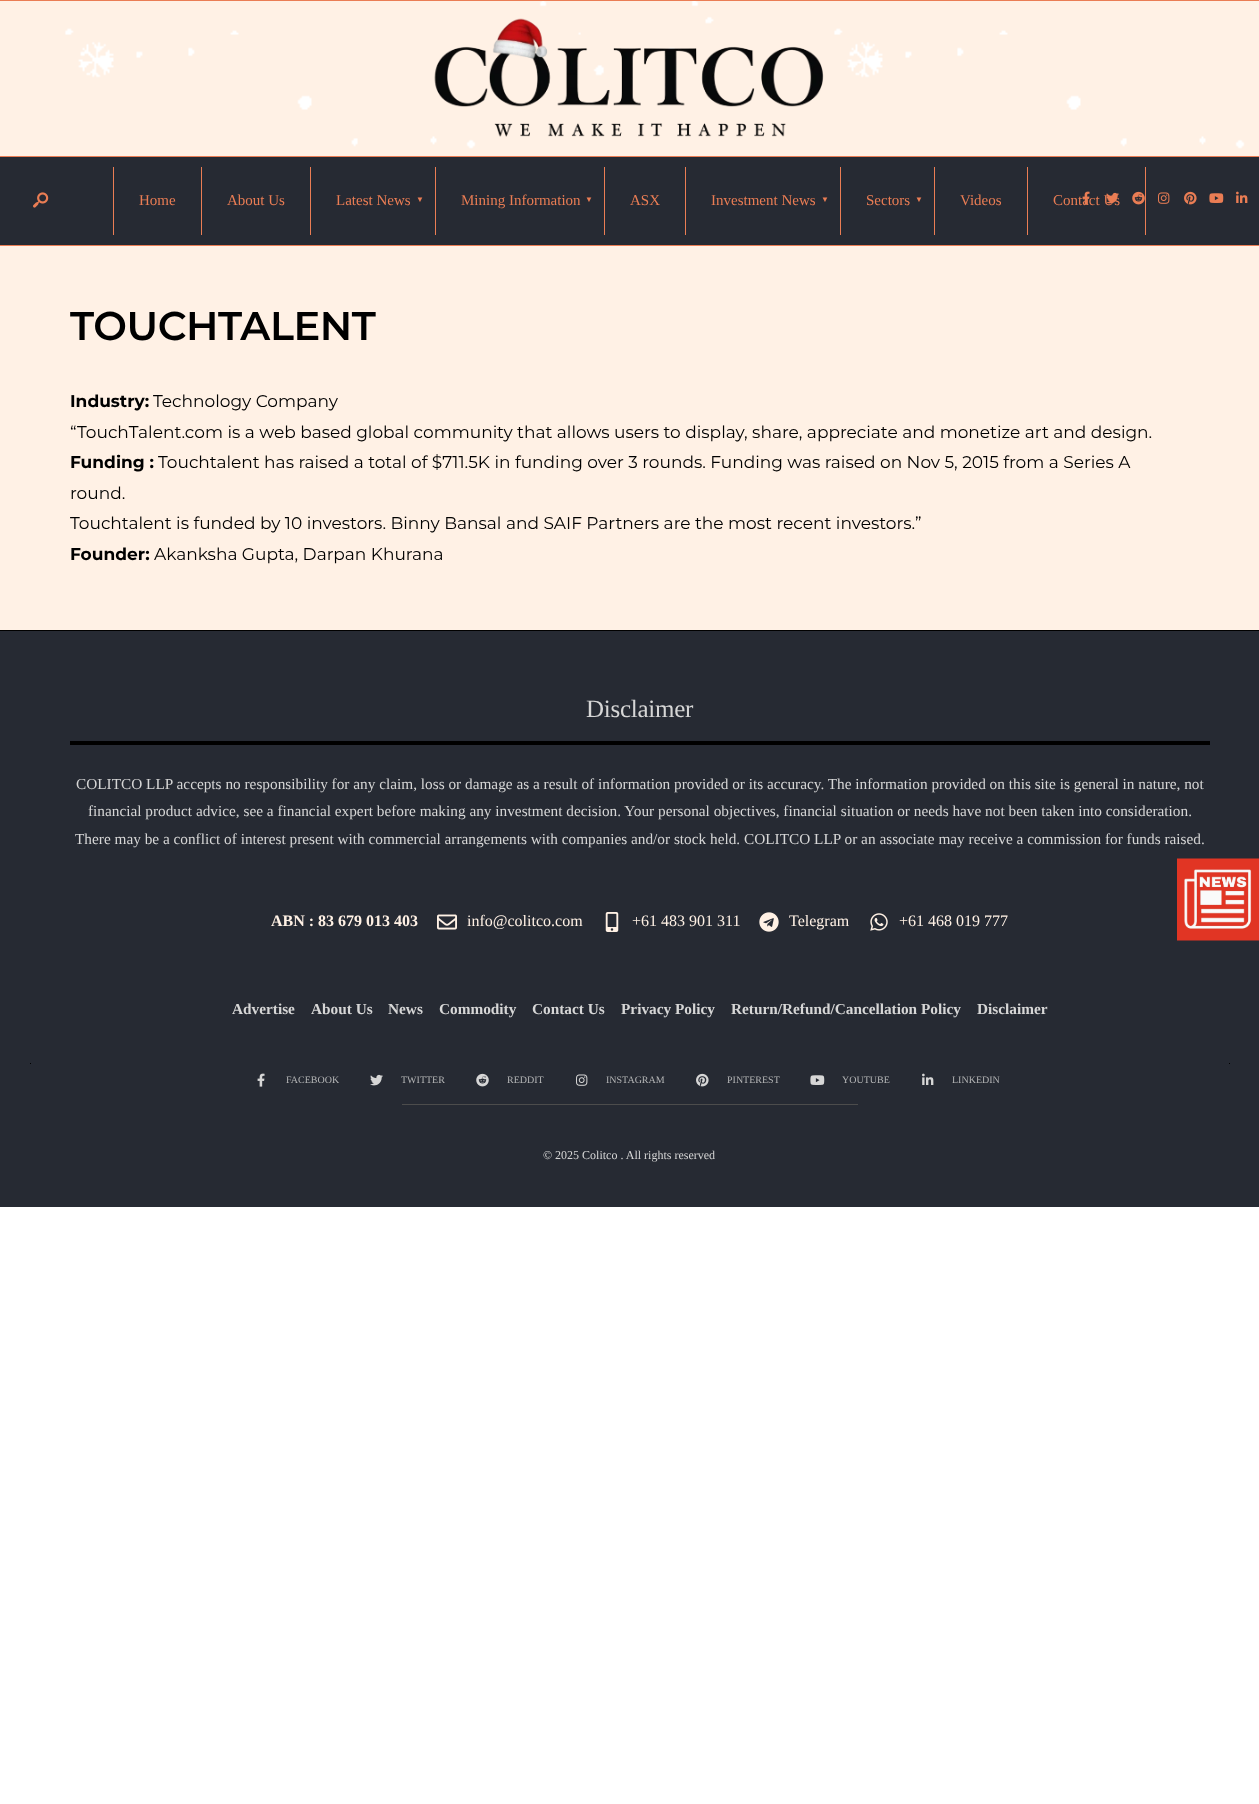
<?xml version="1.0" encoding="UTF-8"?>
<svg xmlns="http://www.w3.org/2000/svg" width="1259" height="1804">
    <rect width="100%" height="100%" fill="#FFFFFF"/>
    <rect x="0" y="1" width="1259" height="629" fill="#FFF1E5"/>
    <image x="64" y="1" width="1181" height="148" href="img_01.png"/>
    <rect x="0" y="0" width="1259" height="1" fill="#EA7D54"/>
    <rect x="0" y="156" width="1259" height="1" fill="#EA7D54"/>
    <image x="434" y="18" width="390" height="119" href="img_02.png"/>
    <rect x="0" y="157" width="1259" height="88" fill="#262A33"/>
    <rect x="0" y="245" width="1259" height="1" fill="#EA7D54"/>
    <image x="33" y="192" width="16" height="16" href="img_03.png"/>
    <rect x="201" y="167" width="1" height="68" fill="#EA7D54"/>
    <rect x="113" y="167" width="1" height="68" fill="#EA7D54"/>
    <text x="139" y="205" font-family="Liberation Serif" font-size="15" fill="#EA7D54">Home</text>
    <rect x="310" y="167" width="1" height="68" fill="#EA7D54"/>
    <text x="227" y="205" font-family="Liberation Serif" font-size="15" fill="#EA7D54">About Us</text>
    <rect x="435" y="167" width="1" height="68" fill="#EA7D54"/>
    <text x="336" y="205" font-family="Liberation Serif" font-size="15" fill="#EA7D54">Latest News</text>
    <text x="416" y="202" font-family="Liberation Sans" font-size="8" fill="#EA7D54">▼</text>
    <rect x="604" y="167" width="1" height="68" fill="#EA7D54"/>
    <text x="461" y="205" font-family="Liberation Serif" font-size="15" fill="#EA7D54">Mining Information</text>
    <text x="585" y="202" font-family="Liberation Sans" font-size="8" fill="#EA7D54">▼</text>
    <rect x="685" y="167" width="1" height="68" fill="#EA7D54"/>
    <text x="630" y="205" font-family="Liberation Serif" font-size="15" fill="#EA7D54">ASX</text>
    <rect x="840" y="167" width="1" height="68" fill="#EA7D54"/>
    <text x="711" y="205" font-family="Liberation Serif" font-size="15" fill="#EA7D54">Investment News</text>
    <text x="821" y="202" font-family="Liberation Sans" font-size="8" fill="#EA7D54">▼</text>
    <rect x="934" y="167" width="1" height="68" fill="#EA7D54"/>
    <text x="866" y="205" font-family="Liberation Serif" font-size="15" fill="#EA7D54">Sectors</text>
    <text x="915" y="202" font-family="Liberation Sans" font-size="8" fill="#EA7D54">▼</text>
    <rect x="1027" y="167" width="1" height="68" fill="#EA7D54"/>
    <text x="960" y="205" font-family="Liberation Serif" font-size="15" fill="#EA7D54">Videos</text>
    <rect x="1145" y="167" width="1" height="68" fill="#EA7D54"/>
    <image x="1082" y="191" width="8" height="14" href="img_04.png"/>
    <image x="1106" y="192" width="13" height="12" href="img_05.png"/>
    <text x="1053" y="205" font-family="Liberation Serif" font-size="15" fill="#EA7D54">Contact Us</text>
    <image x="1132" y="191" width="13" height="14" href="img_06.png"/>
    <image x="1158" y="192" width="12" height="12" href="img_07.png"/>
    <image x="1184" y="191" width="13" height="14" href="img_08.png"/>
    <image x="1209" y="193" width="15" height="10" href="img_09.png"/>
    <image x="1236" y="191" width="12" height="12" href="img_10.png"/>
    <text x="70" y="340" font-family="Montserrat" font-size="40" font-weight="600" letter-spacing="-0.4" fill="#000000">TOUCHTALENT</text>
    <text x="70" y="407" font-family="Montserrat" font-size="17" font-weight="700" fill="#000000">Industry:</text>
    <text x="153" y="407" font-family="Montserrat" font-size="17" fill="#000000">Technology Company</text>
    <text x="70" y="438" font-family="Montserrat" font-size="17" fill="#000000">“TouchTalent.com is a web based global community that allows users to display, share, appreciate and monetize art and design.</text>
    <text x="70" y="468" font-family="Montserrat" font-size="17" font-weight="700" fill="#000000">Funding :</text>
    <text x="158" y="468" font-family="Montserrat" font-size="17" fill="#000000">Touchtalent has raised a total of $711.5K in funding over 3 rounds. Funding was raised on Nov 5, 2015 from a Series A</text>
    <text font-family="Montserrat" font-size="17" fill="#000000">
        <tspan x="70" y="499">round.</tspan>
        <tspan x="70" y="529">Touchtalent is funded by 10 investors. Binny Bansal and SAIF Partners are the most recent investors.”</tspan>
    </text>
    <text x="70" y="560" font-family="Montserrat" font-size="17" font-weight="700" fill="#000000">Founder:</text>
    <text x="154" y="560" font-family="Montserrat" font-size="17" fill="#000000">Akanksha Gupta, Darpan Khurana</text>
    <rect x="0" y="631" width="1259" height="576" fill="#262A33"/>
    <rect x="0" y="630" width="1259" height="1" fill="#000000"/>
    <rect x="70" y="741" width="1140" height="4" fill="#000000"/>
    <text x="586" y="717" font-family="Liberation Serif" font-size="25" letter-spacing="-0.25" fill="#D6D6D6">Disclaimer</text>
    <text x="76" y="789" font-family="Liberation Serif" font-size="15.3" fill="#D6D6D6">COLITCO LLP accepts no responsibility for any claim, loss or damage as a result of information provided or its accuracy. The information provided on this site is general in nature, not</text>
    <text x="88" y="816" font-family="Liberation Serif" font-size="15.3" fill="#D6D6D6">financial product advice, see a financial expert before making any investment decision. Your personal objectives, financial situation or needs have not been taken into consideration.</text>
    <text x="75" y="844" font-family="Liberation Serif" font-size="15.3" fill="#D6D6D6">There may be a conflict of interest present with commercial arrangements with companies and/or stock held. COLITCO LLP or an associate may receive a commission for funds raised.</text>
    <text x="271" y="926" font-family="Liberation Serif" font-size="16" font-weight="700" fill="#FFF1E5">ABN : 83 679 013 403</text>
    <image x="437" y="914" width="20" height="16" href="img_11.png"/>
    <text x="467" y="926" font-family="Liberation Serif" font-size="16" fill="#FFF1E5">info@colitco.com</text>
    <image x="605" y="912" width="14" height="20" href="img_12.png"/>
    <text x="632" y="926" font-family="Liberation Serif" font-size="16" fill="#FFF1E5">+61 483 901 311</text>
    <image x="759" y="912" width="20" height="20" href="img_13.png"/>
    <text x="789" y="926" font-family="Liberation Serif" font-size="16" fill="#FFF1E5">Telegram</text>
    <image x="870" y="913" width="18" height="18" href="img_14.png"/>
    <text x="899" y="926" font-family="Liberation Serif" font-size="16" fill="#FFF1E5">+61 468 019 777</text>
    <text x="232" y="1014" font-family="Liberation Serif" font-size="15.3" font-weight="700" fill="#D6D6D6">Advertise</text>
    <text x="311" y="1014" font-family="Liberation Serif" font-size="15.3" font-weight="700" fill="#D6D6D6">About Us</text>
    <text x="388" y="1014" font-family="Liberation Serif" font-size="15.3" font-weight="700" fill="#D6D6D6">News</text>
    <text x="439" y="1014" font-family="Liberation Serif" font-size="15.3" font-weight="700" fill="#D6D6D6">Commodity</text>
    <text x="532" y="1014" font-family="Liberation Serif" font-size="15.3" font-weight="700" fill="#D6D6D6">Contact Us</text>
    <text x="621" y="1014" font-family="Liberation Serif" font-size="15.3" font-weight="700" fill="#D6D6D6">Privacy Policy</text>
    <text x="731" y="1014" font-family="Liberation Serif" font-size="15.3" font-weight="700" fill="#D6D6D6">Return/Refund/Cancellation Policy</text>
    <text x="977" y="1014" font-family="Liberation Serif" font-size="15.3" font-weight="700" fill="#D6D6D6">Disclaimer</text>
    <rect x="1229" y="1063" width="1" height="1" fill="#000000"/>
    <rect x="30" y="1063" width="1" height="1" fill="#000000"/>
    <image x="257" y="1073" width="8" height="14" href="img_15.png"/>
    <text x="286" y="1083" font-family="Liberation Serif" font-size="10" fill="#B3B4B5">FACEBOOK</text>
    <image x="370" y="1074" width="13" height="12" href="img_16.png"/>
    <text x="401" y="1083" font-family="Liberation Serif" font-size="10" fill="#B3B4B5">TWITTER</text>
    <image x="476" y="1073" width="13" height="14" href="img_17.png"/>
    <text x="507" y="1083" font-family="Liberation Serif" font-size="10" fill="#B3B4B5">REDDIT</text>
    <image x="576" y="1074" width="12" height="12" href="img_18.png"/>
    <text x="606" y="1083" font-family="Liberation Serif" font-size="10" fill="#B3B4B5">INSTAGRAM</text>
    <image x="696" y="1073" width="13" height="14" href="img_19.png"/>
    <text x="727" y="1083" font-family="Liberation Serif" font-size="10" fill="#B3B4B5">PINTEREST</text>
    <image x="810" y="1075" width="15" height="10" href="img_20.png"/>
    <text x="842" y="1083" font-family="Liberation Serif" font-size="10" fill="#B3B4B5">YOUTUBE</text>
    <image x="922" y="1073" width="12" height="12" href="img_21.png"/>
    <text x="952" y="1083" font-family="Liberation Serif" font-size="10" fill="#B3B4B5">LINKEDIN</text>
    <rect x="402" y="1104" width="456" height="1" fill="#4C4C4C"/>
    <text x="543" y="1159" font-family="Liberation Serif" font-size="12" fill="#D6D6D6">© 2025 Colitco . All rights reserved</text>
    <image x="1177" y="858" width="82" height="83" href="img_22.png"/>
</svg>
